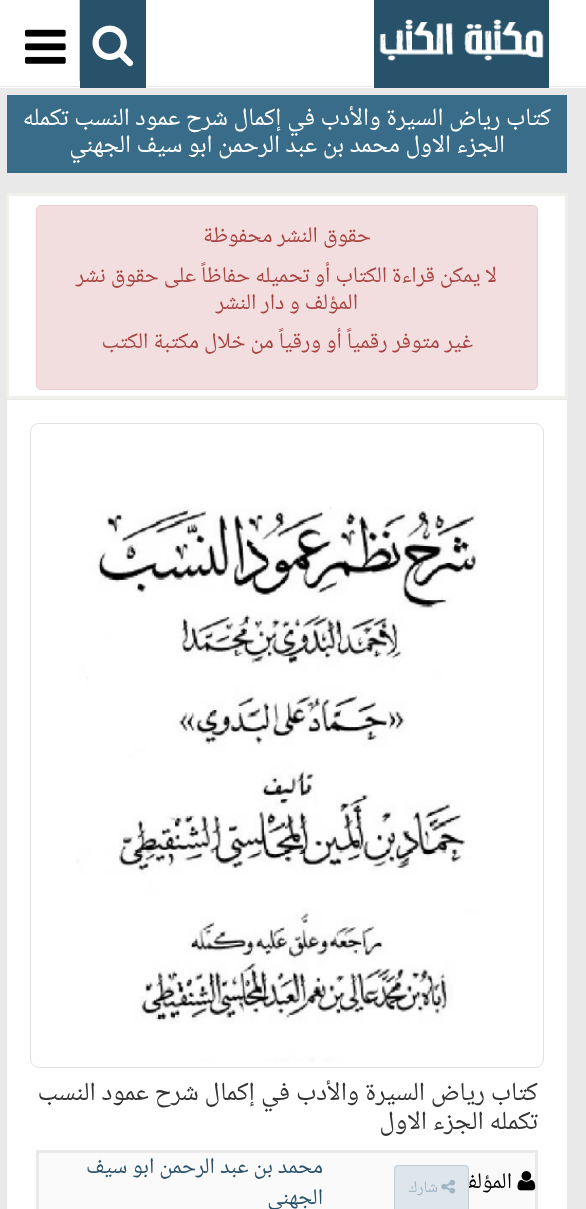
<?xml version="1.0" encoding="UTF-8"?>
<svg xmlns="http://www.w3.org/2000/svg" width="586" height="1209">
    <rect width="100%" height="100%" fill="#E9E9E9"/>
    <rect x="0" y="0" width="586" height="88" fill="#FFFFFF"/>
    <rect x="0" y="86" width="586" height="1" fill="#E8E8E8"/>
    <rect x="374" y="0" width="175" height="88" fill="#285269"/>
    <image x="379" y="19" width="165" height="42" href="img_01.png"/>
    <rect x="80" y="0" width="66" height="88" fill="#285269"/>
    <image x="92" y="25" width="42" height="42" href="img_02.png"/>
    <rect x="79" y="0" width="1" height="81" fill="#CCCCCC"/>
    <image x="25" y="29" width="41" height="35" href="img_03.png"/>
    <rect x="7" y="95" width="560" height="78" fill="#386C89"/>
    <text x="551" y="125" font-family="Noto Naskh Arabic" font-size="25" direction="rtl" fill="#FFFFFF">كتاب رياض السيرة والأدب في إكمال شرح عمود النسب تكمله</text>
    <text x="505" y="152" font-family="Noto Naskh Arabic" font-size="25" direction="rtl" fill="#FFFFFF">الجزء الاول محمد بن عبد الرحمن ابو سيف الجهني</text>
    <rect x="7.5" y="194.5" width="559" height="203" fill="#FFFFFF" stroke="#F0F0EA" stroke-width="3"/>
    <rect x="36.5" y="205.5" width="501" height="184" rx="4.5" fill="#F2DEDE" stroke="#EBCCD1"/>
    <text x="371" y="242" font-family="Noto Naskh Arabic" font-size="22.5" direction="rtl" fill="#A94442">حقوق النشر محفوظة</text>
    <text x="497" y="282" font-family="Noto Naskh Arabic" font-size="22.5" direction="rtl" fill="#A94442">لا يمكن قراءة الكتاب أو تحميله حفاظاً على حقوق نشر</text>
    <text x="358" y="309" font-family="Noto Naskh Arabic" font-size="22.5" direction="rtl" fill="#A94442">المؤلف و دار النشر</text>
    <text x="473" y="348" font-family="Noto Naskh Arabic" font-size="22.5" direction="rtl" fill="#A94442">غير متوفر رقمياً أو ورقياً من خلال مكتبة الكتب</text>
    <rect x="7" y="400" width="560" height="809" fill="#FFFFFF"/>
    <rect x="30.5" y="423.5" width="513" height="644" rx="8.5" fill="none" stroke="#E1E1E1"/>
    <image x="76" y="506" width="402" height="556" href="img_04.png"/>
    <text font-family="Noto Naskh Arabic" font-size="26.25" direction="rtl" fill="#333333">
        <tspan x="538" y="1100">كتاب رياض السيرة والأدب في إكمال شرح عمود النسب</tspan>
        <tspan x="538" y="1129">تكمله الجزء الاول</tspan>
    </text>
    <rect x="37.5" y="1151.5" width="499" height="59" fill="#FAFAFA" stroke="#E9E9E9" stroke-width="3"/>
    <image x="517" y="1171" width="19" height="20" href="img_05.png"/>
    <text x="512" y="1188" font-family="Noto Naskh Arabic" font-size="22.5" direction="rtl" fill="#000000">المؤلف :</text>
    <text font-family="Noto Naskh Arabic" font-size="22.5" direction="rtl" fill="#285269">
        <tspan x="323" y="1173">محمد بن عبد الرحمن ابو سيف</tspan>
        <tspan x="323" y="1204">الجهني</tspan>
    </text>
    <path d="M 399 1165 H 464 C 467 1165 469 1167 469 1170 V 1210 H 394 V 1170 C 394 1167 396 1165 399 1165 Z" fill="#DEE6EC"/>
    <path d="M 399 1165 H 464 C 467 1165 469 1167 469 1170 V 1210 H 394 V 1170 C 394 1167 396 1165 399 1165 Z M 399 1166 H 464 C 466 1166 468 1168 468 1170 V 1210 H 395 V 1170 C 395 1168 397 1166 399 1166 Z" fill="#C4CDD4" fill-rule="evenodd"/>
    <image x="441" y="1179" width="15" height="15" href="img_06.png"/>
    <text x="438" y="1192" font-family="Noto Naskh Arabic" font-size="16" direction="rtl" fill="#A1B5C3">شارك</text>
</svg>
